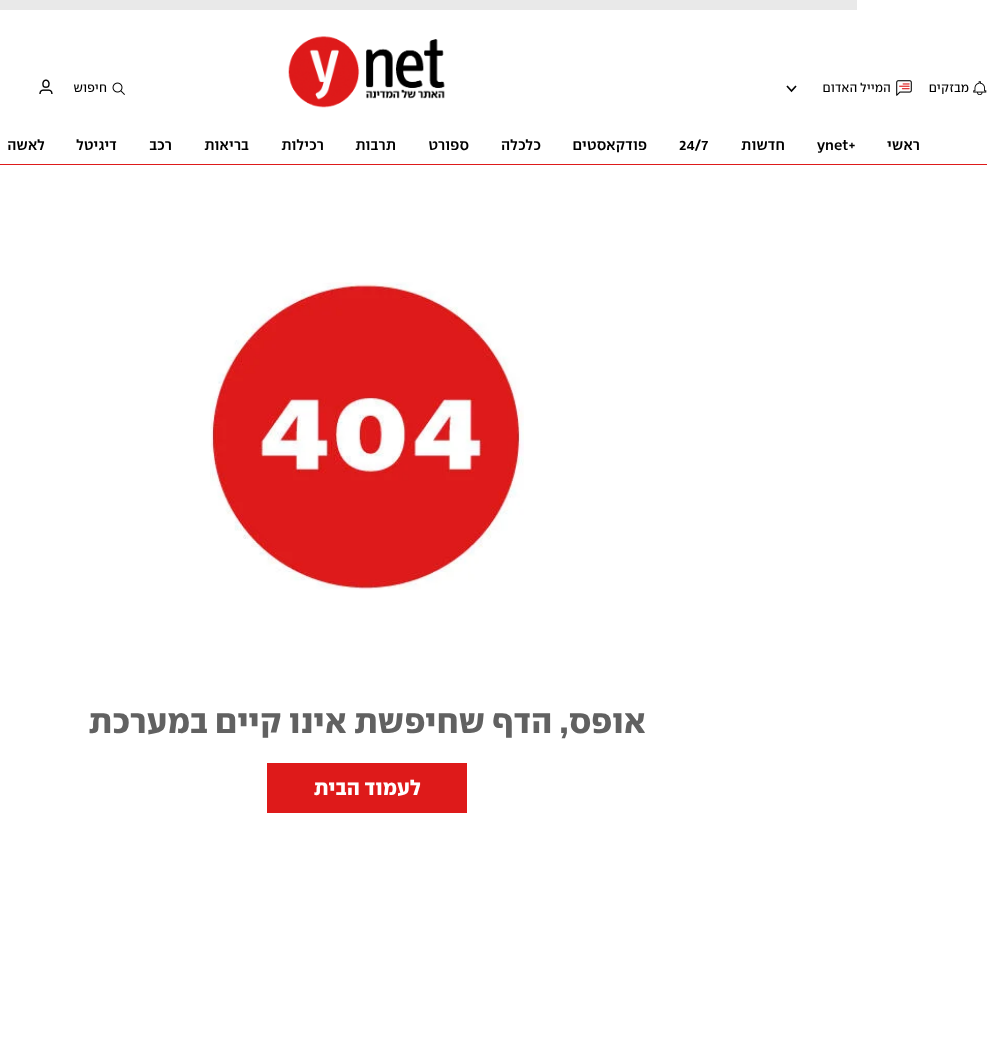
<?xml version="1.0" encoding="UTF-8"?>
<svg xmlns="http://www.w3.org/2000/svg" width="987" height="1046">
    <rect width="100%" height="100%" fill="#FFFFFF"/>
    <rect x="0" y="0" width="857" height="10" fill="#E9E9E9"/>
    <image x="973" y="81" width="14" height="14" href="img_01.png"/>
    <text x="969" y="92" font-family="'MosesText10'" font-size="12" font-weight="300" direction="rtl" fill="#000000">מבזקים</text>
    <image x="896" y="80" width="16" height="16" href="img_02.png"/>
    <text x="891" y="92" font-family="'MosesText10'" font-size="12" font-weight="300" direction="rtl" fill="#000000">המייל האדום</text>
    <path d="M 796 86 L 791.5 91 L 787 86" fill="none" stroke="#040404" stroke-width="1.7"/>
    <image x="288" y="36" width="157" height="72" href="img_03.png"/>
    <image x="112" y="82" width="13" height="13" href="img_04.png"/>
    <text x="107" y="92" font-family="'MosesText10'" font-size="12" font-weight="300" direction="rtl" fill="#000000">חיפוש</text>
    <image x="39" y="79" width="14" height="15" href="img_05.png"/>
    <rect x="0" y="164" width="987" height="1" fill="#DE1A1A"/>
    <text x="920" y="150" font-family="'MosesText10'" font-size="14" font-weight="500" direction="rtl" fill="#000000">ראשי</text>
    <text x="817" y="150" font-family="'MosesText10'" font-size="14" font-weight="500" fill="#000000">ynet+</text>
    <text x="785" y="150" font-family="'MosesText10'" font-size="14" font-weight="500" direction="rtl" fill="#000000">חדשות</text>
    <text x="679" y="150" font-family="'MosesText10'" font-size="14" font-weight="500" fill="#000000">24/7</text>
    <text x="647" y="150" font-family="'MosesText10'" font-size="14" font-weight="500" direction="rtl" fill="#000000">פודקאסטים</text>
    <text x="541" y="150" font-family="'MosesText10'" font-size="14" font-weight="500" direction="rtl" fill="#000000">כלכלה</text>
    <text x="469" y="150" font-family="'MosesText10'" font-size="14" font-weight="500" direction="rtl" fill="#000000">ספורט</text>
    <text x="396" y="150" font-family="'MosesText10'" font-size="14" font-weight="500" direction="rtl" fill="#000000">תרבות</text>
    <text x="324" y="150" font-family="'MosesText10'" font-size="14" font-weight="500" direction="rtl" fill="#000000">רכילות</text>
    <text x="249" y="150" font-family="'MosesText10'" font-size="14" font-weight="500" direction="rtl" fill="#000000">בריאות</text>
    <text x="172" y="150" font-family="'MosesText10'" font-size="14" font-weight="500" direction="rtl" fill="#000000">רכב</text>
    <text x="117" y="150" font-family="'MosesText10'" font-size="14" font-weight="500" direction="rtl" fill="#000000">דיגיטל</text>
    <text x="45" y="150" font-family="'MosesText10'" font-size="14" font-weight="500" direction="rtl" fill="#000000">לאשה</text>
    <image x="210" y="282" width="314" height="308" href="img_06.png"/>
    <text x="646" y="733" font-family="'MosesText10'" font-size="32" font-weight="700" direction="rtl" fill="#616161">אופס, הדף שחיפשת אינו קיים במערכת</text>
    <rect x="267" y="763" width="200" height="50" fill="#DE1A1A"/>
    <text x="421" y="795" font-family="'MosesText10'" font-size="20" font-weight="700" direction="rtl" fill="#FFFFFF">לעמוד הבית</text>
</svg>
